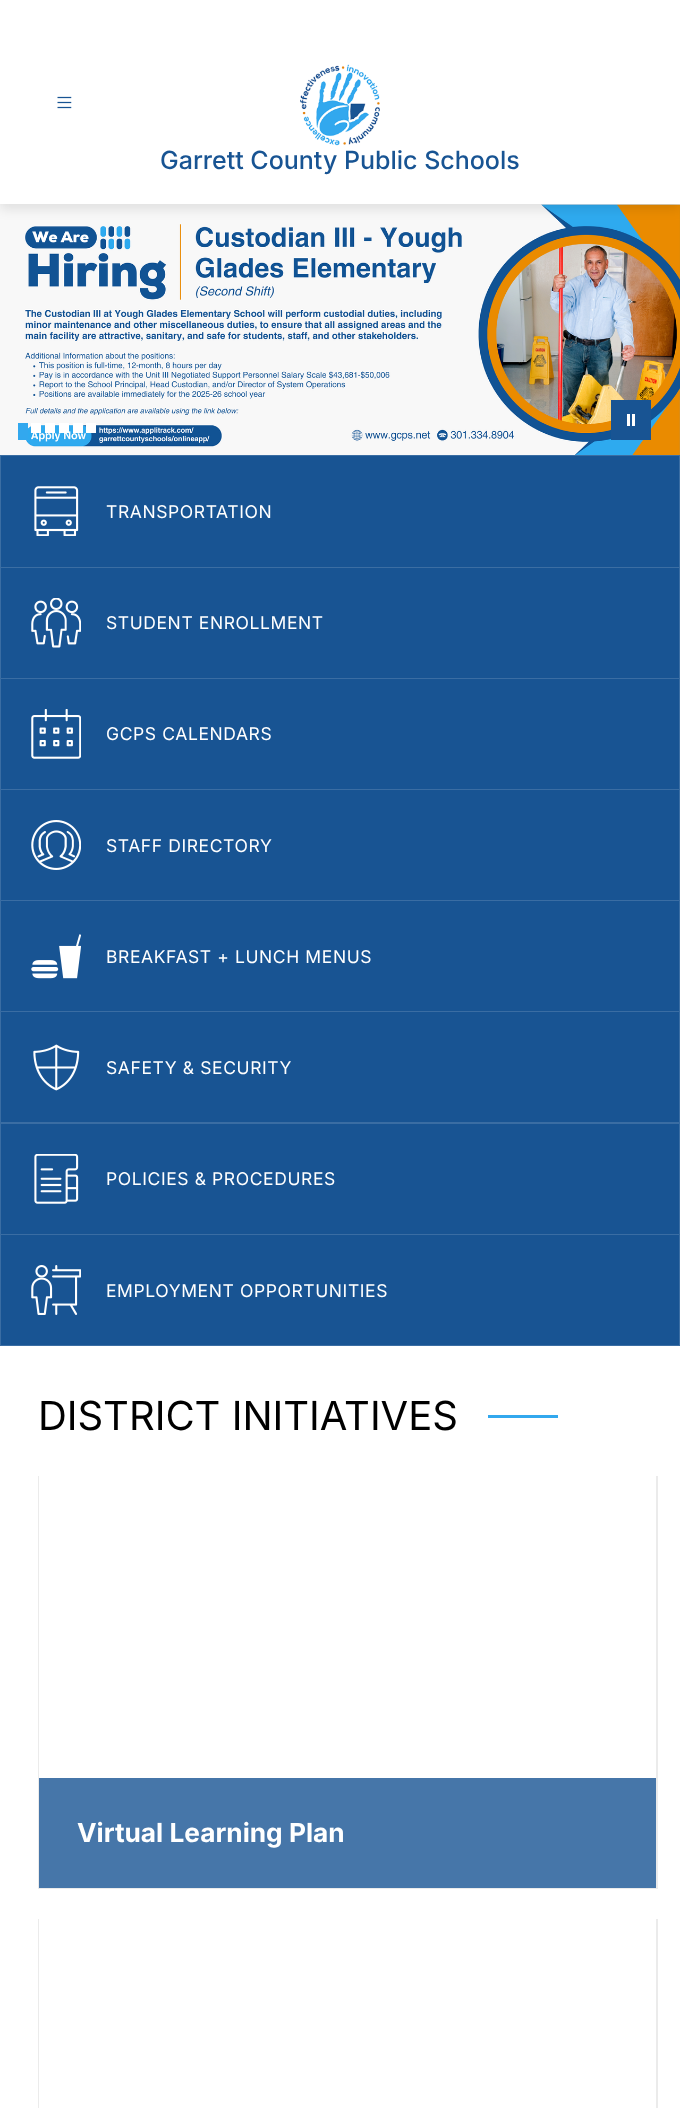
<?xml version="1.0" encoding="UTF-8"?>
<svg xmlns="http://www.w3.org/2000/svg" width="680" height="2108">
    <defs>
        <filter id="blur1" x="-50%" y="-200%" width="200%" height="500%"><feGaussianBlur stdDeviation="6"/></filter>
    </defs>
    <rect width="100%" height="100%" fill="#FFFFFF"/>
    <image x="0" y="204" width="680" height="251" href="img_03.png"/>
    <rect x="0" y="5" width="680" height="204" fill="#000000" fill-opacity="0.1" filter="url(#blur1)"/>
    <rect x="0" y="0" width="680" height="204" fill="#FFFFFF"/>
    <image x="57" y="96" width="15" height="13" href="img_01.png"/>
    <image x="300" y="64" width="80" height="82" href="img_02.png"/>
    <text x="160" y="169" font-family="Inter" font-size="25" font-weight="500" fill="#185493">Garrett County Public Schools</text>
    <rect x="18" y="423" width="10" height="17" fill="#32A8EE"/>
    <rect x="31" y="423" width="10" height="10" fill="#FFFFFF"/>
    <rect x="45" y="423" width="10" height="10" fill="#FFFFFF"/>
    <rect x="59" y="423" width="10" height="10" fill="#FFFFFF"/>
    <rect x="73" y="423" width="10" height="10" fill="#FFFFFF"/>
    <rect x="86" y="423" width="10" height="10" fill="#FFFFFF"/>
    <rect x="611" y="400" width="40" height="40" fill="#185493"/>
    <path d="M 630 414 H 627 V 426 H 630 Z M 635 414 H 632 V 426 H 635 Z" fill="#FFFFFF" fill-rule="evenodd"/>
    <rect x="0.5" y="455.5" width="679" height="112" fill="#185493" stroke="#3B6EA3"/>
    <image x="34" y="486" width="45" height="50" href="img_04.png"/>
    <text x="106" y="518" font-family="Inter" font-size="17.5" letter-spacing="0.6" fill="#FFFFFF">TRANSPORTATION</text>
    <rect x="0" y="568" width="680" height="778" fill="#185493"/>
    <path d="M 680 568 V 679 L 679 678 V 568 Z" fill="#3B6EA3"/>
    <path d="M 680 679 H 0 L 1 678 H 679 Z" fill="#FFFFFF" fill-opacity="0.15"/>
    <path d="M 0 679 V 568 H 1 V 678 Z" fill="#FFFFFF" fill-opacity="0.15"/>
    <image x="31" y="598" width="50" height="50" href="img_05.png"/>
    <text x="106" y="629" font-family="Inter" font-size="17.5" letter-spacing="0.6" fill="#FFFFFF">STUDENT ENROLLMENT</text>
    <path d="M 680 679 V 790 L 679 789 V 679 Z" fill="#3B6EA3"/>
    <path d="M 680 790 H 0 L 1 789 H 679 Z" fill="#FFFFFF" fill-opacity="0.15"/>
    <path d="M 0 790 V 679 H 1 V 789 Z" fill="#FFFFFF" fill-opacity="0.15"/>
    <image x="31" y="709" width="50" height="50" href="img_06.png"/>
    <text x="106" y="740" font-family="Inter" font-size="17.5" letter-spacing="0.6" fill="#FFFFFF">GCPS CALENDARS</text>
    <path d="M 680 790 V 901 L 679 900 V 790 Z" fill="#3B6EA3"/>
    <path d="M 680 901 H 0 L 1 900 H 679 Z" fill="#FFFFFF" fill-opacity="0.15"/>
    <path d="M 0 901 V 790 H 1 V 900 Z" fill="#FFFFFF" fill-opacity="0.15"/>
    <image x="31" y="820" width="50" height="50" href="img_07.png"/>
    <text x="106" y="852" font-family="Inter" font-size="17.5" letter-spacing="0.6" fill="#FFFFFF">STAFF DIRECTORY</text>
    <path d="M 680 901 V 1012 L 679 1011 V 901 Z" fill="#3B6EA3"/>
    <path d="M 680 1012 H 0 L 1 1011 H 679 Z" fill="#FFFFFF" fill-opacity="0.15"/>
    <path d="M 0 1012 V 901 H 1 V 1011 Z" fill="#FFFFFF" fill-opacity="0.15"/>
    <image x="31" y="934" width="50" height="45" href="img_08.png"/>
    <text x="106" y="963" font-family="Inter" font-size="17.5" letter-spacing="0.6" fill="#FFFFFF">BREAKFAST + LUNCH MENUS</text>
    <path d="M 680 1012 V 1124 L 679 1122 V 1012 Z" fill="#3B6EA3"/>
    <path d="M 680 1124 H 0 L 1 1122 H 679 Z" fill="#FFFFFF" fill-opacity="0.15"/>
    <path d="M 0 1124 V 1012 H 1 V 1122 Z" fill="#FFFFFF" fill-opacity="0.15"/>
    <image x="33" y="1044" width="47" height="47" href="img_09.png"/>
    <text x="106" y="1074" font-family="Inter" font-size="17.5" letter-spacing="0.6" fill="#FFFFFF">SAFETY &amp; SECURITY</text>
    <path d="M 680 1124 V 1235 L 679 1234 V 1124 Z" fill="#3B6EA3"/>
    <path d="M 680 1235 H 0 L 1 1234 H 679 Z" fill="#FFFFFF" fill-opacity="0.15"/>
    <path d="M 0 1235 V 1124 H 1 V 1234 Z" fill="#FFFFFF" fill-opacity="0.15"/>
    <image x="34" y="1154" width="45" height="50" href="img_10.png"/>
    <text x="106" y="1185" font-family="Inter" font-size="17.5" letter-spacing="0.6" fill="#FFFFFF">POLICIES &amp; PROCEDURES</text>
    <path d="M 680 1235 V 1346 L 679 1345 V 1235 Z" fill="#3B6EA3"/>
    <path d="M 680 1346 H 0 L 1 1345 H 679 Z" fill="#FFFFFF" fill-opacity="0.15"/>
    <path d="M 0 1346 V 1235 H 1 V 1345 Z" fill="#FFFFFF" fill-opacity="0.15"/>
    <image x="31" y="1265" width="50" height="50" href="img_11.png"/>
    <text x="106" y="1297" font-family="Inter" font-size="17.5" letter-spacing="0.6" fill="#FFFFFF">EMPLOYMENT OPPORTUNITIES</text>
    <text x="38" y="1430" font-family="Inter" font-size="40" fill="#000000">DISTRICT INITIATIVES</text>
    <rect x="488" y="1415" width="70" height="3" fill="#32A8EE"/>
    <path d="M 658 1476 V 1889 L 656 1888 V 1476 Z" fill="#EBEBEB"/>
    <path d="M 658 1889 H 38 L 39 1888 H 656 Z" fill="#000000" fill-opacity="0.08"/>
    <path d="M 38 1889 V 1476 H 39 V 1888 Z" fill="#000000" fill-opacity="0.08"/>
    <rect x="39" y="1778" width="617" height="110" fill="#4676A9"/>
    <text x="77" y="1842" font-family="Inter" font-size="26.25" font-weight="700" fill="#FFFFFF">Virtual Learning Plan</text>
    <path d="M 658 1919 V 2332 L 656 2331 V 1919 Z" fill="#EBEBEB"/>
    <path d="M 38 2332 V 1919 H 39 V 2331 Z" fill="#EBEBEB"/>
</svg>
